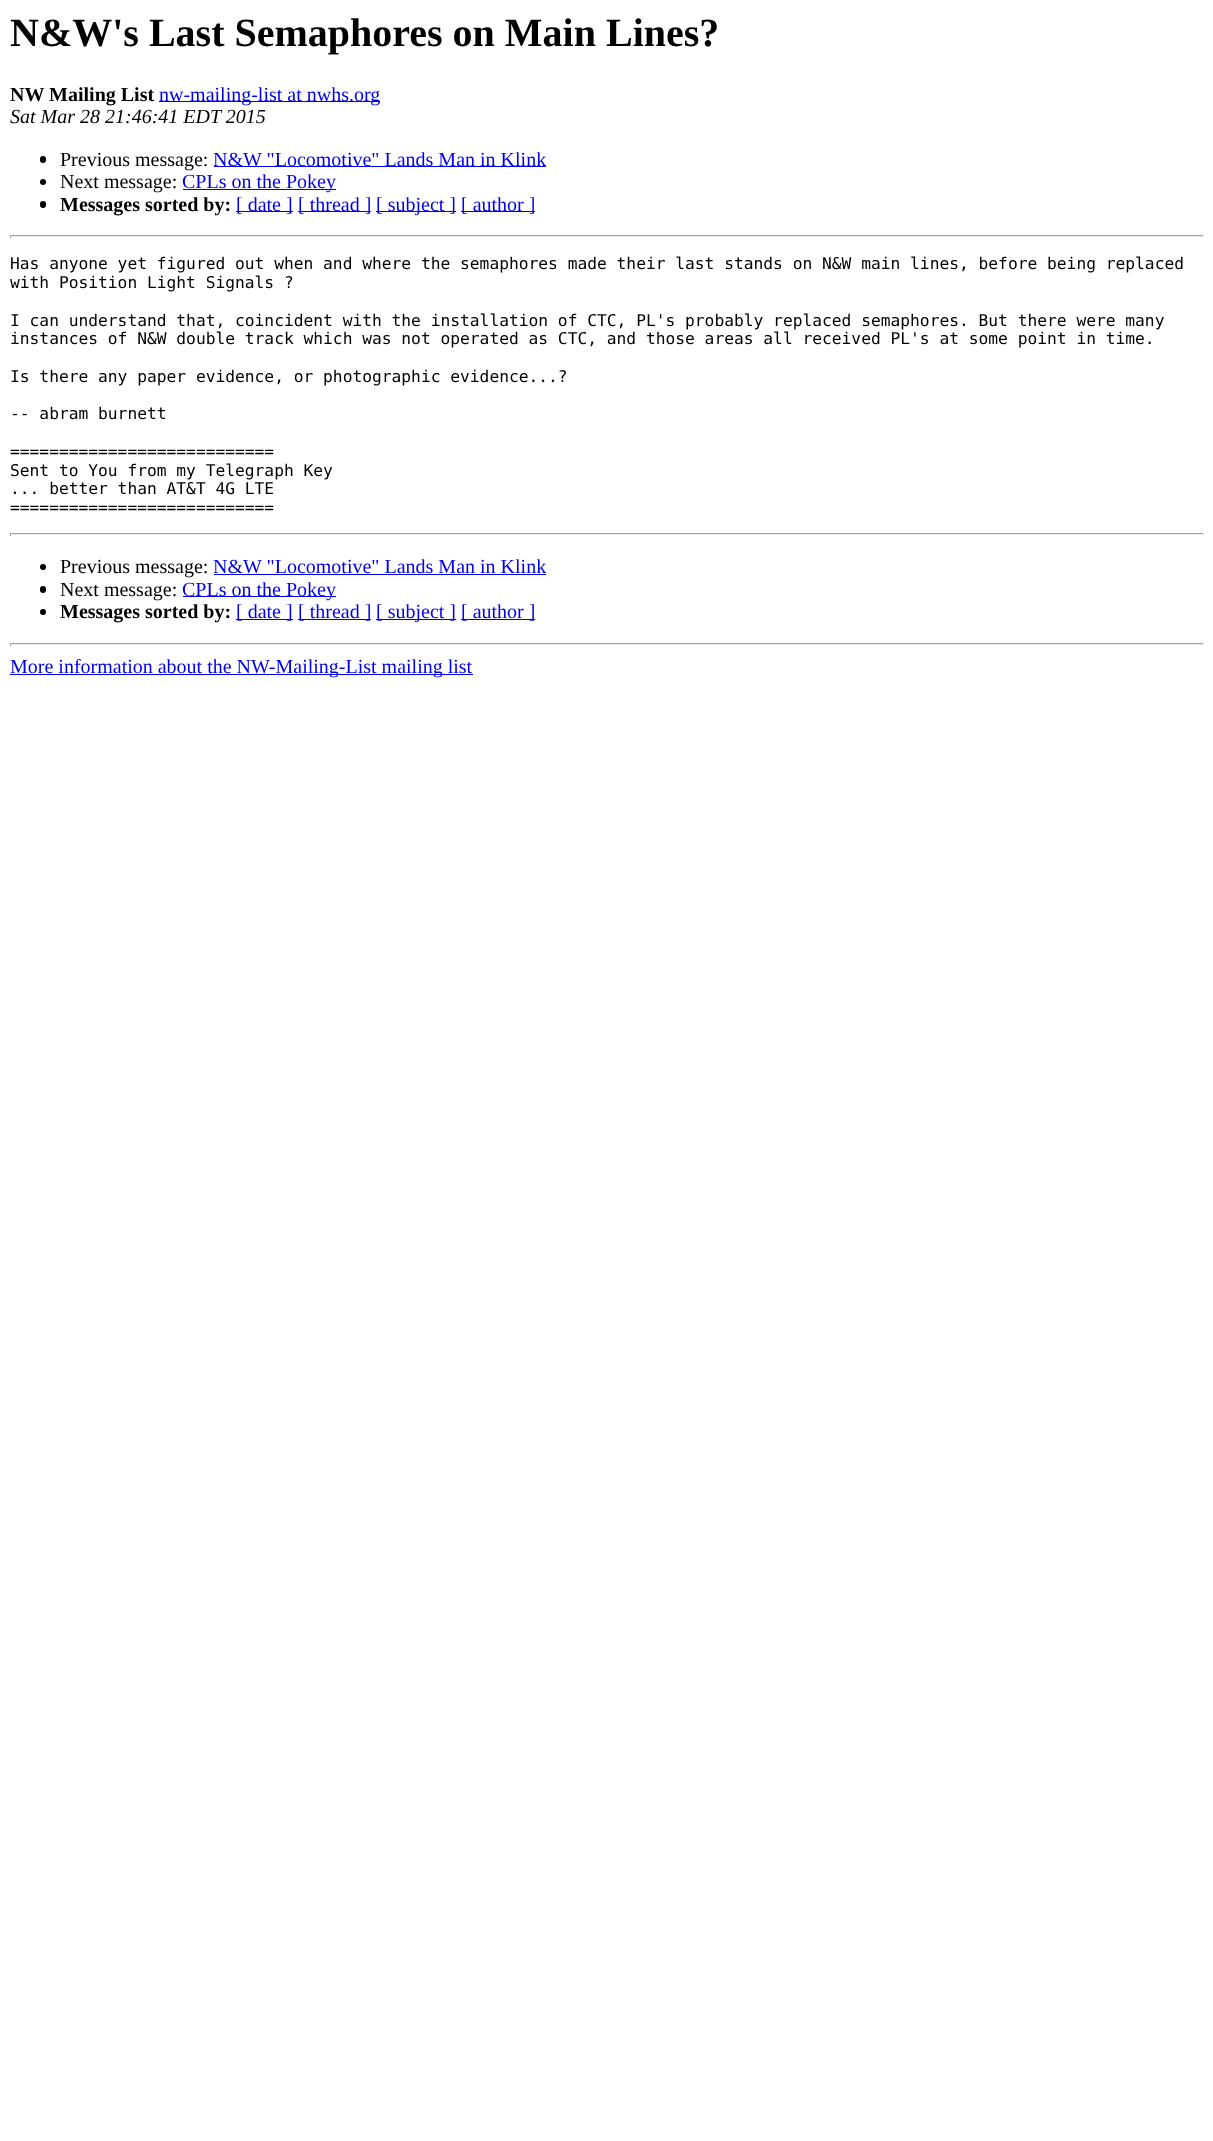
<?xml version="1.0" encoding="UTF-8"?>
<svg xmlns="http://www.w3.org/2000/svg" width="1213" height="2141">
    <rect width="100%" height="100%" fill="#FFFFFF"/>
    <text x="10" y="46" font-family="Liberation Serif" font-size="40" font-weight="700" fill="#000000">N&amp;W's Last Semaphores on Main Lines?</text>
    <text x="10" y="101" font-family="Liberation Serif" font-size="20" font-weight="700" fill="#000000">NW Mailing List</text>
    <rect x="159" y="101" width="221" height="1" fill="#0000EE"/>
    <text x="159" y="101" font-family="Liberation Serif" font-size="20" fill="#0000EE">nw-mailing-list at nwhs.org</text>
    <text x="10" y="123" font-family="Liberation Serif" font-size="20" font-style="italic" fill="#000000">Sat Mar 28 21:46:41 EDT 2015</text>
    <rect x="40" y="156" width="6" height="7" rx="3" fill="#000000"/>
    <text x="60" y="166" font-family="Liberation Serif" font-size="20" fill="#000000">Previous message:</text>
    <rect x="214" y="166" width="332" height="1" fill="#0000EE"/>
    <text x="213" y="166" font-family="Liberation Serif" font-size="20" fill="#0000EE">N&amp;W "Locomotive" Lands Man in Klink</text>
    <circle cx="43" cy="182" r="3" fill="#000000"/>
    <text x="60" y="188" font-family="Liberation Serif" font-size="20" fill="#000000">Next message:</text>
    <rect x="183" y="189" width="153" height="1" fill="#0000EE"/>
    <text x="182" y="188" font-family="Liberation Serif" font-size="20" fill="#0000EE">CPLs on the Pokey</text>
    <rect x="40" y="201" width="6" height="7" rx="3" fill="#000000"/>
    <text x="60" y="211" font-family="Liberation Serif" font-size="20" font-weight="700" fill="#000000">Messages sorted by:</text>
    <rect x="236" y="211" width="57" height="1" fill="#0000EE"/>
    <text x="236" y="211" font-family="Liberation Serif" font-size="20" fill="#0000EE">[ date ]</text>
    <rect x="298" y="211" width="73" height="1" fill="#0000EE"/>
    <text x="298" y="211" font-family="Liberation Serif" font-size="20" fill="#0000EE">[ thread ]</text>
    <rect x="376" y="211" width="80" height="1" fill="#0000EE"/>
    <text x="376" y="211" font-family="Liberation Serif" font-size="20" fill="#0000EE">[ subject ]</text>
    <rect x="461" y="211" width="74" height="1" fill="#0000EE"/>
    <text x="461" y="211" font-family="Liberation Serif" font-size="20" fill="#0000EE">[ author ]</text>
    <rect x="10" y="235" width="1194" height="1" fill="#9F9F9F"/>
    <rect x="1203" y="235" width="1" height="3" fill="#EEEEEE"/>
    <rect x="10" y="236" width="1194" height="1" fill="#EEEEEE"/>
    <rect x="10" y="235" width="1" height="3" fill="#9F9F9F"/>
    <text font-family="DejaVu Sans Mono" font-size="16.25" fill="#000000">
        <tspan x="10" y="269">Has anyone yet figured out when and where the semaphores made their last stands on N&amp;W main lines, before being replaced</tspan>
        <tspan x="10" y="288">with Position Light Signals ?</tspan>
    </text>
    <text font-family="DejaVu Sans Mono" font-size="16.25" fill="#000000">
        <tspan x="10" y="326">I can understand that, coincident with the installation of CTC, PL's probably replaced semaphores. But there were many</tspan>
        <tspan x="10" y="344">instances of N&amp;W double track which was not operated as CTC, and those areas all received PL's at some point in time.</tspan>
    </text>
    <text x="10" y="382" font-family="DejaVu Sans Mono" font-size="16.25" fill="#000000">Is there any paper evidence, or photographic evidence...?</text>
    <text x="10" y="419" font-family="DejaVu Sans Mono" font-size="16.25" fill="#000000">-- abram burnett</text>
    <text font-family="DejaVu Sans Mono" font-size="16.25" fill="#000000">
        <tspan x="10" y="457">===========================</tspan>
        <tspan x="10" y="476">Sent to You from my Telegraph Key</tspan>
        <tspan x="10" y="494">... better than AT&amp;T 4G LTE</tspan>
        <tspan x="10" y="513">===========================</tspan>
    </text>
    <rect x="10" y="533" width="1194" height="1" fill="#9F9F9F"/>
    <rect x="1203" y="533" width="1" height="3" fill="#EEEEEE"/>
    <rect x="10" y="534" width="1194" height="1" fill="#EEEEEE"/>
    <rect x="10" y="533" width="1" height="3" fill="#9F9F9F"/>
    <circle cx="43" cy="567" r="3" fill="#000000"/>
    <text x="60" y="573" font-family="Liberation Serif" font-size="20" fill="#000000">Previous message:</text>
    <text x="213" y="573" font-family="Liberation Serif" font-size="20" fill="#0000EE">N&amp;W "Locomotive" Lands Man in Klink</text>
    <rect x="214" y="574" width="332" height="1" fill="#0000EE"/>
    <rect x="40" y="586" width="6" height="7" rx="3" fill="#000000"/>
    <text x="60" y="596" font-family="Liberation Serif" font-size="20" fill="#000000">Next message:</text>
    <rect x="183" y="596" width="153" height="1" fill="#0000EE"/>
    <text x="182" y="596" font-family="Liberation Serif" font-size="20" fill="#0000EE">CPLs on the Pokey</text>
    <circle cx="43" cy="612" r="3" fill="#000000"/>
    <text x="60" y="618" font-family="Liberation Serif" font-size="20" font-weight="700" fill="#000000">Messages sorted by:</text>
    <rect x="236" y="619" width="57" height="1" fill="#0000EE"/>
    <text x="236" y="618" font-family="Liberation Serif" font-size="20" fill="#0000EE">[ date ]</text>
    <rect x="298" y="619" width="73" height="1" fill="#0000EE"/>
    <text x="298" y="618" font-family="Liberation Serif" font-size="20" fill="#0000EE">[ thread ]</text>
    <rect x="376" y="619" width="80" height="1" fill="#0000EE"/>
    <text x="376" y="618" font-family="Liberation Serif" font-size="20" fill="#0000EE">[ subject ]</text>
    <rect x="461" y="619" width="74" height="1" fill="#0000EE"/>
    <text x="461" y="618" font-family="Liberation Serif" font-size="20" fill="#0000EE">[ author ]</text>
    <rect x="10" y="643" width="1194" height="1" fill="#9F9F9F"/>
    <rect x="1203" y="643" width="1" height="3" fill="#EEEEEE"/>
    <rect x="10" y="644" width="1194" height="1" fill="#EEEEEE"/>
    <rect x="10" y="643" width="1" height="3" fill="#9F9F9F"/>
    <rect x="10" y="674" width="463" height="1" fill="#0000EE"/>
    <text x="10" y="673" font-family="Liberation Serif" font-size="20" fill="#0000EE">More information about the NW-Mailing-List mailing list</text>
</svg>
